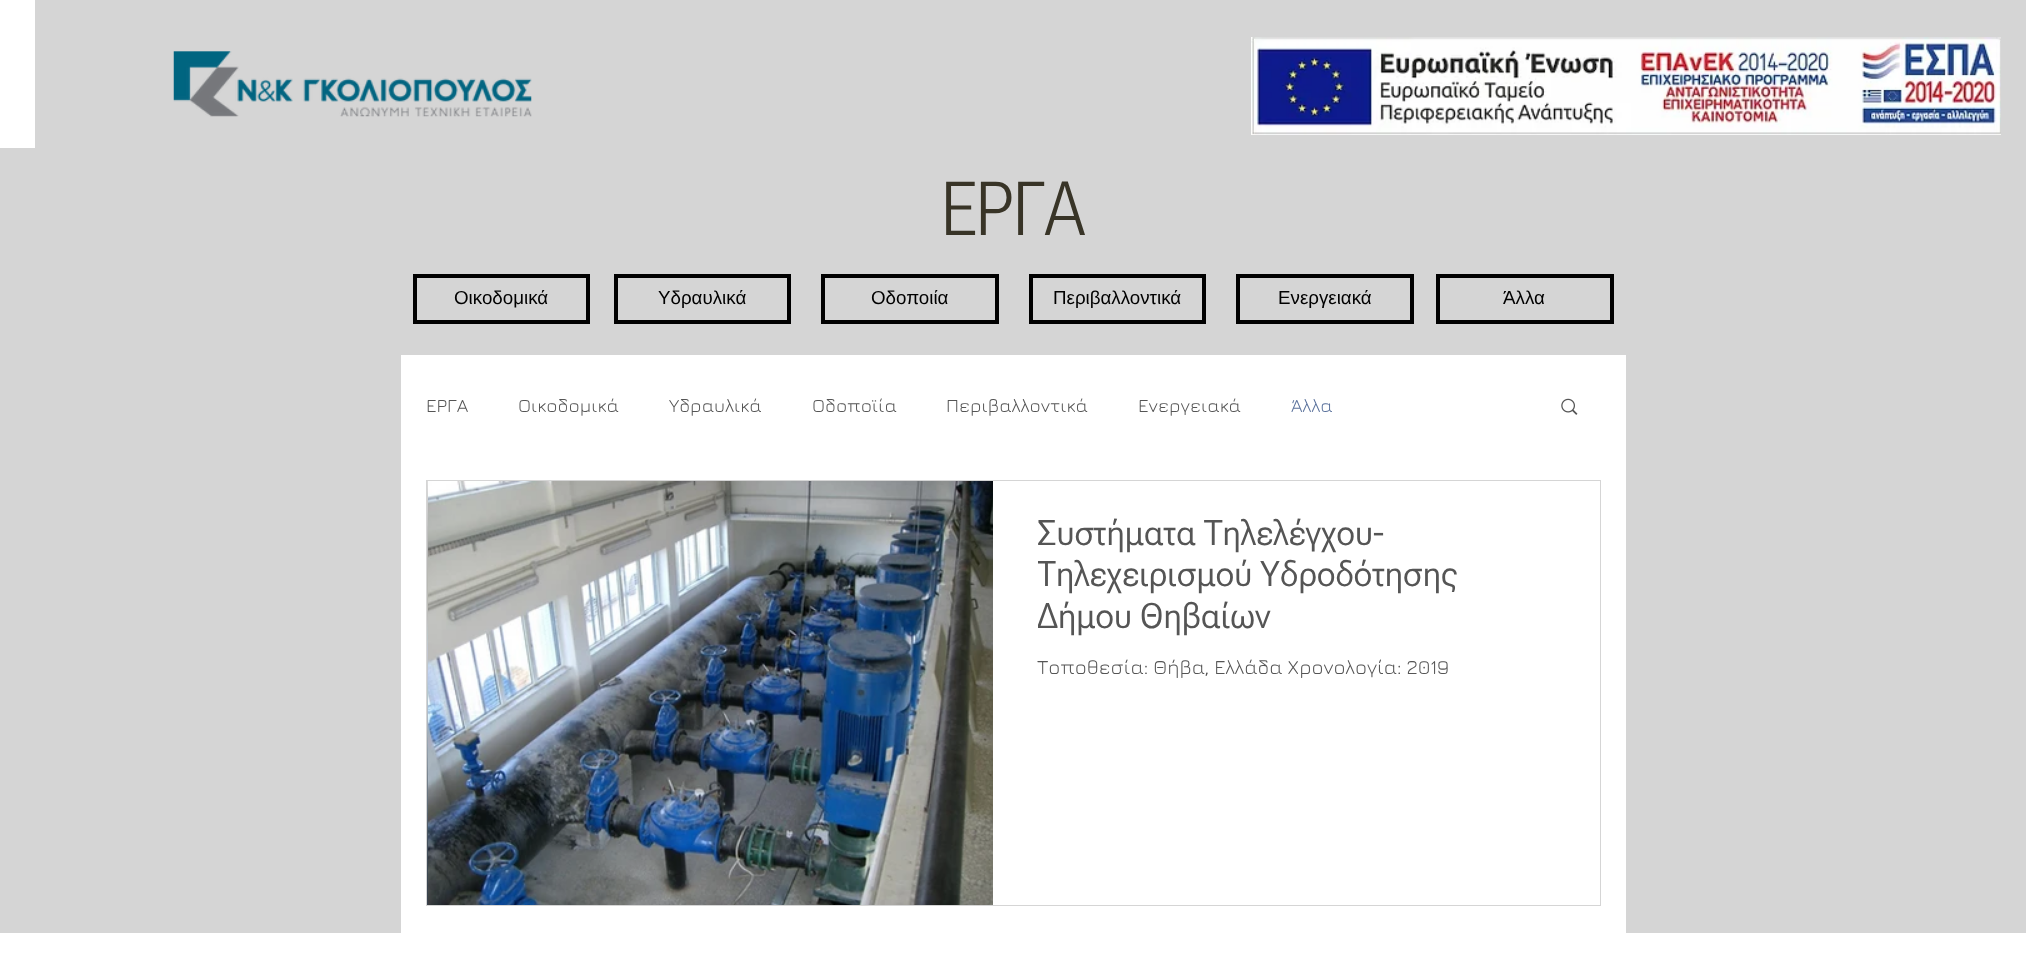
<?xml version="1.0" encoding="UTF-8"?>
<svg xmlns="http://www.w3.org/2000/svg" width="2026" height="974">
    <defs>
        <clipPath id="clip1"><rect x="1038" y="513" width="517" height="123"/></clipPath>
    </defs>
    <rect width="100%" height="100%" fill="#D5D5D5"/>
    <rect x="0" y="0" width="35" height="148" fill="#FFFFFF"/>
    <image x="173" y="51" width="359" height="66" href="img_01.png"/>
    <image x="1251" y="37" width="750" height="98" href="img_02.png"/>
    <text x="941" y="235" font-family="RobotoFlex" font-size="75" fill="#383427">ΕΡΓΑ</text>
    <rect x="415" y="276" width="173" height="46" fill="none" stroke="#000000" stroke-width="4"/>
    <text x="454" y="304" font-family="Liberation Sans" font-size="18.75" fill="#000000">Οικοδομικά</text>
    <rect x="616" y="276" width="173" height="46" fill="none" stroke="#000000" stroke-width="4"/>
    <text x="658" y="304" font-family="Liberation Sans" font-size="18.75" fill="#000000">Υδραυλικά</text>
    <rect x="823" y="276" width="174" height="46" fill="none" stroke="#000000" stroke-width="4"/>
    <text x="871" y="304" font-family="Liberation Sans" font-size="18.75" fill="#000000">Οδοποιία</text>
    <rect x="1031" y="276" width="173" height="46" fill="none" stroke="#000000" stroke-width="4"/>
    <text x="1053" y="304" font-family="Liberation Sans" font-size="18.75" fill="#000000">Περιβαλλοντικά</text>
    <rect x="1238" y="276" width="174" height="46" fill="none" stroke="#000000" stroke-width="4"/>
    <text x="1278" y="304" font-family="Liberation Sans" font-size="18.75" fill="#000000">Ενεργειακά</text>
    <rect x="1438" y="276" width="174" height="46" fill="none" stroke="#000000" stroke-width="4"/>
    <text x="1503" y="304" font-family="Liberation Sans" font-size="18.75" fill="#000000">Άλλα</text>
    <rect x="401" y="355" width="1225" height="578" fill="#FFFFFF"/>
    <text x="426" y="412" font-family="Jura" font-size="18.75" fill="#555555">ΕΡΓΑ</text>
    <text x="518" y="412" font-family="Jura" font-size="18.75" fill="#555555">Οικοδομικά</text>
    <text x="669" y="412" font-family="Jura" font-size="18.75" fill="#555555">Υδραυλικά</text>
    <text x="812" y="412" font-family="Jura" font-size="18.75" fill="#555555">Οδοποϊία</text>
    <text x="946" y="412" font-family="Jura" font-size="18.75" fill="#555555">Περιβαλλοντικά</text>
    <text x="1138" y="412" font-family="Jura" font-size="18.75" fill="#555555">Ενεργειακά</text>
    <text x="1291" y="412" font-family="Jura" font-size="18.75" fill="#5C739D">Άλλα</text>
    <image x="1561" y="398" width="17" height="17" href="img_03.png"/>
    <rect x="426.5" y="480.5" width="1174" height="425" fill="none" stroke="#D5D5D5"/>
    <image x="427" y="481" width="1" height="424" href="img_04.png"/>
    <image x="428" y="481" width="565" height="424" href="img_05.png"/>
    <text x="1037" y="545" font-family="'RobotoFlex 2'" font-size="35" fill="#555555">Συστήματα Τηλελέγχου-</text>
    <g clip-path="url(#clip1)">
        <text font-family="'RobotoFlex 2'" font-size="35" fill="#555555">
            <tspan x="1037" y="586">Τηλεχειρισμού Υδροδότησης</tspan>
            <tspan x="1037" y="628">Δήμου Θηβαίων</tspan>
        </text>
    </g>
    <text x="1037" y="674" font-family="Jura" font-size="20" fill="#555555">Τοποθεσία: Θήβα, Ελλάδα Χρονολογία: 2019</text>
    <rect x="0" y="933" width="2026" height="41" fill="#FFFFFF"/>
</svg>
